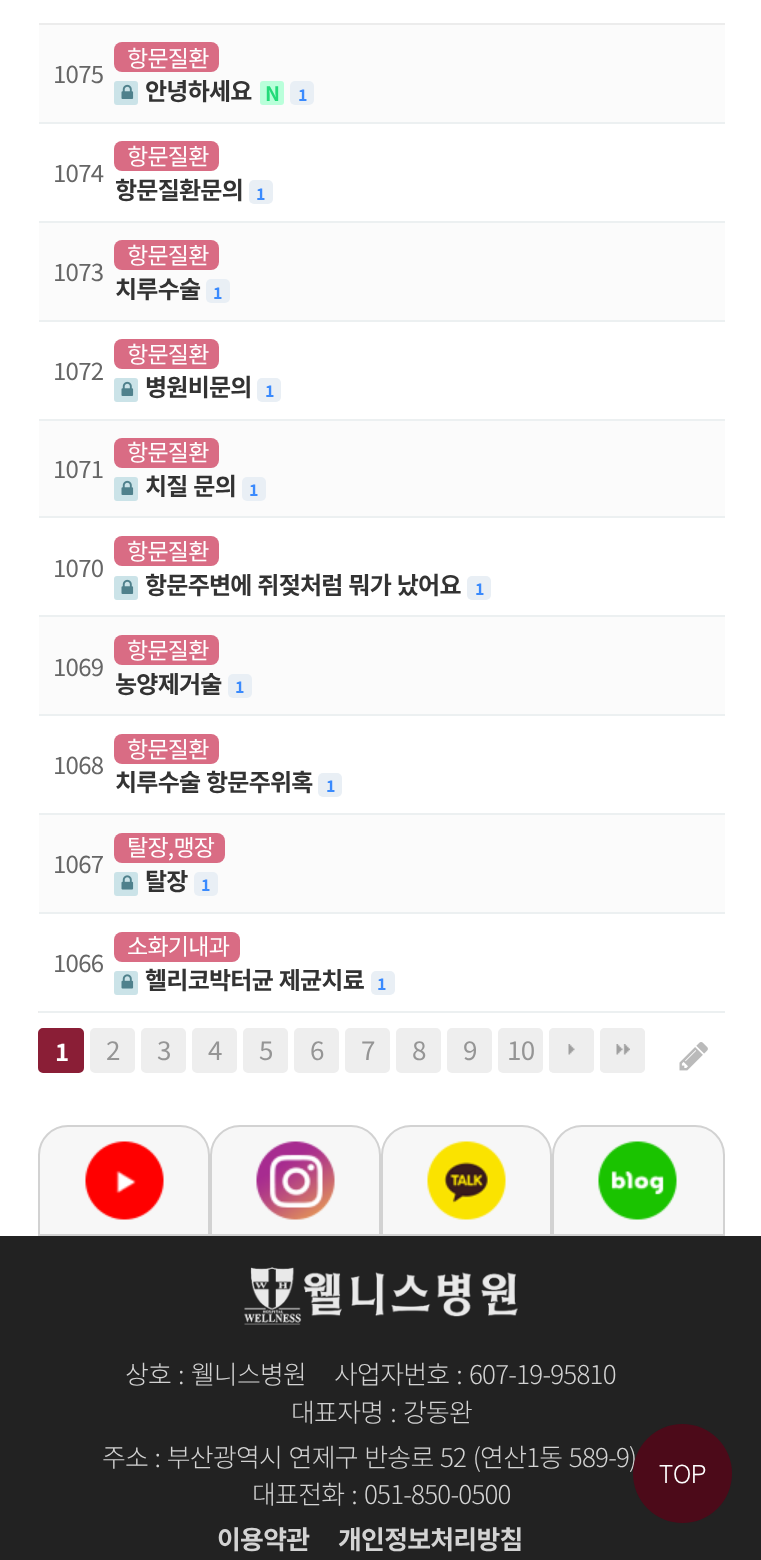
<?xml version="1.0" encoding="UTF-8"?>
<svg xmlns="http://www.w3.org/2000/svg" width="761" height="1560">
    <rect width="100%" height="100%" fill="#FFFFFF"/>
    <rect x="38" y="1011" width="1" height="2" fill="#ECECEC"/>
    <rect x="39" y="23" width="686" height="2" fill="#ECECEC"/>
    <rect x="39" y="25" width="686" height="97" fill="#FBFBFB"/>
    <text x="53" y="83" font-family="Noto Sans KR" font-size="24" letter-spacing="-0.75" fill="#666666">1075</text>
    <rect x="114" y="42" width="105" height="30" rx="8" fill="#D96C84"/>
    <text x="127" y="67" font-family="Noto Sans KR" font-size="23" letter-spacing="-0.75" fill="#FFFFFF">항문질환</text>
    <rect x="115" y="82" width="22" height="22" rx="2" fill="#CBE3E8" stroke="#CBE3E8" stroke-width="2"/>
    <image x="121" y="84" width="13" height="15" href="img_01.png"/>
    <text x="145" y="100" font-family="Noto Sans KR" font-size="24" font-weight="700" letter-spacing="-0.75" fill="#333333">안녕하세요</text>
    <rect x="260" y="81" width="24" height="24" rx="3" fill="#B9FFDA"/>
    <text x="265" y="101" font-family="Noto Sans KR" font-size="20" font-weight="700" letter-spacing="-0.75" fill="#23DB79">N</text>
    <rect x="290" y="81" width="24" height="24" rx="5" fill="#E9EFF5"/>
    <text x="298" y="101" font-family="Noto Sans KR" font-size="16" font-weight="700" letter-spacing="-0.75" fill="#3A8AFD">1</text>
    <text x="53" y="182" font-family="Noto Sans KR" font-size="24" letter-spacing="-0.75" fill="#666666">1074</text>
    <rect x="39" y="122" width="686" height="2" fill="#ECF0F1"/>
    <rect x="114" y="141" width="105" height="30" rx="8" fill="#D96C84"/>
    <text x="127" y="165" font-family="Noto Sans KR" font-size="23" letter-spacing="-0.75" fill="#FFFFFF">항문질환</text>
    <text x="115" y="199" font-family="Noto Sans KR" font-size="24" font-weight="700" letter-spacing="-0.75" fill="#333333">항문질환문의</text>
    <rect x="249" y="180" width="24" height="24" rx="5" fill="#E9EFF5"/>
    <text x="256" y="200" font-family="Noto Sans KR" font-size="16" font-weight="700" letter-spacing="-0.75" fill="#3A8AFD">1</text>
    <rect x="39" y="223" width="686" height="97" fill="#FBFBFB"/>
    <text x="53" y="281" font-family="Noto Sans KR" font-size="24" letter-spacing="-0.75" fill="#666666">1073</text>
    <rect x="39" y="221" width="686" height="2" fill="#ECF0F1"/>
    <rect x="114" y="240" width="105" height="30" rx="8" fill="#D96C84"/>
    <text x="127" y="264" font-family="Noto Sans KR" font-size="23" letter-spacing="-0.75" fill="#FFFFFF">항문질환</text>
    <text x="115" y="298" font-family="Noto Sans KR" font-size="24" font-weight="700" letter-spacing="-0.75" fill="#333333">치루수술</text>
    <rect x="206" y="279" width="24" height="24" rx="5" fill="#E9EFF5"/>
    <text x="213" y="299" font-family="Noto Sans KR" font-size="16" font-weight="700" letter-spacing="-0.75" fill="#3A8AFD">1</text>
    <text x="53" y="380" font-family="Noto Sans KR" font-size="24" letter-spacing="-0.75" fill="#666666">1072</text>
    <rect x="39" y="320" width="686" height="2" fill="#ECF0F1"/>
    <rect x="114" y="339" width="105" height="30" rx="8" fill="#D96C84"/>
    <text x="127" y="363" font-family="Noto Sans KR" font-size="23" letter-spacing="-0.75" fill="#FFFFFF">항문질환</text>
    <rect x="115" y="379" width="22" height="22" rx="2" fill="#CBE3E8" stroke="#CBE3E8" stroke-width="2"/>
    <image x="121" y="381" width="13" height="15" href="img_01.png"/>
    <text x="145" y="396" font-family="Noto Sans KR" font-size="24" font-weight="700" letter-spacing="-0.75" fill="#333333">병원비문의</text>
    <rect x="257" y="378" width="24" height="24" rx="5" fill="#E9EFF5"/>
    <text x="265" y="397" font-family="Noto Sans KR" font-size="16" font-weight="700" letter-spacing="-0.75" fill="#3A8AFD">1</text>
    <rect x="39" y="421" width="686" height="95" fill="#FBFBFB"/>
    <text x="53" y="478" font-family="Noto Sans KR" font-size="24" letter-spacing="-0.75" fill="#666666">1071</text>
    <rect x="39" y="419" width="686" height="2" fill="#ECF0F1"/>
    <rect x="114" y="438" width="105" height="30" rx="8" fill="#D96C84"/>
    <text x="127" y="461" font-family="Noto Sans KR" font-size="23" letter-spacing="-0.75" fill="#FFFFFF">항문질환</text>
    <rect x="115" y="478" width="22" height="22" rx="2" fill="#CBE3E8" stroke="#CBE3E8" stroke-width="2"/>
    <image x="121" y="480" width="13" height="15" href="img_01.png"/>
    <text x="145" y="495" word-spacing="1" font-family="Noto Sans KR" font-size="24" font-weight="700" letter-spacing="-0.75" fill="#333333">치질 문의</text>
    <rect x="242" y="477" width="24" height="24" rx="5" fill="#E9EFF5"/>
    <text x="249" y="496" font-family="Noto Sans KR" font-size="16" font-weight="700" letter-spacing="-0.75" fill="#3A8AFD">1</text>
    <text x="53" y="577" font-family="Noto Sans KR" font-size="24" letter-spacing="-0.75" fill="#666666">1070</text>
    <rect x="39" y="516" width="686" height="2" fill="#ECF0F1"/>
    <rect x="114" y="536" width="105" height="30" rx="8" fill="#D96C84"/>
    <text x="127" y="560" font-family="Noto Sans KR" font-size="23" letter-spacing="-0.75" fill="#FFFFFF">항문질환</text>
    <rect x="115" y="577" width="22" height="22" rx="2" fill="#CBE3E8" stroke="#CBE3E8" stroke-width="2"/>
    <image x="121" y="579" width="13" height="15" href="img_01.png"/>
    <text x="145" y="594" word-spacing="1" font-family="Noto Sans KR" font-size="24" font-weight="700" letter-spacing="-0.75" fill="#333333">항문주변에 쥐젖처럼 뭐가 났어요</text>
    <rect x="467" y="576" width="24" height="24" rx="5" fill="#E9EFF5"/>
    <text x="475" y="595" font-family="Noto Sans KR" font-size="16" font-weight="700" letter-spacing="-0.75" fill="#3A8AFD">1</text>
    <rect x="39" y="617" width="686" height="97" fill="#FBFBFB"/>
    <text x="53" y="676" font-family="Noto Sans KR" font-size="24" letter-spacing="-0.75" fill="#666666">1069</text>
    <rect x="39" y="615" width="686" height="2" fill="#ECF0F1"/>
    <rect x="114" y="635" width="105" height="30" rx="8" fill="#D96C84"/>
    <text x="127" y="659" font-family="Noto Sans KR" font-size="23" letter-spacing="-0.75" fill="#FFFFFF">항문질환</text>
    <text x="115" y="693" font-family="Noto Sans KR" font-size="24" font-weight="700" letter-spacing="-0.75" fill="#333333">농양제거술</text>
    <rect x="228" y="674" width="24" height="24" rx="5" fill="#E9EFF5"/>
    <text x="235" y="693" font-family="Noto Sans KR" font-size="16" font-weight="700" letter-spacing="-0.75" fill="#3A8AFD">1</text>
    <text x="53" y="774" font-family="Noto Sans KR" font-size="24" letter-spacing="-0.75" fill="#666666">1068</text>
    <rect x="39" y="714" width="686" height="2" fill="#ECF0F1"/>
    <rect x="114" y="734" width="105" height="30" rx="8" fill="#D96C84"/>
    <text x="127" y="758" font-family="Noto Sans KR" font-size="23" letter-spacing="-0.75" fill="#FFFFFF">항문질환</text>
    <text x="115" y="791" word-spacing="1" font-family="Noto Sans KR" font-size="24" font-weight="700" letter-spacing="-0.75" fill="#333333">치루수술 항문주위혹</text>
    <rect x="318" y="773" width="24" height="24" rx="5" fill="#E9EFF5"/>
    <text x="326" y="792" font-family="Noto Sans KR" font-size="16" font-weight="700" letter-spacing="-0.75" fill="#3A8AFD">1</text>
    <rect x="39" y="815" width="686" height="97" fill="#FBFBFB"/>
    <text x="53" y="873" font-family="Noto Sans KR" font-size="24" letter-spacing="-0.75" fill="#666666">1067</text>
    <rect x="39" y="813" width="686" height="2" fill="#ECF0F1"/>
    <rect x="114" y="833" width="111" height="30" rx="8" fill="#D96C84"/>
    <text x="127" y="856" font-family="Noto Sans KR" font-size="23" letter-spacing="-0.75" fill="#FFFFFF">탈장,맹장</text>
    <rect x="115" y="873" width="22" height="22" rx="2" fill="#CBE3E8" stroke="#CBE3E8" stroke-width="2"/>
    <image x="121" y="875" width="13" height="15" href="img_02.png"/>
    <text x="145" y="890" font-family="Noto Sans KR" font-size="24" font-weight="700" letter-spacing="-0.75" fill="#333333">탈장</text>
    <rect x="194" y="872" width="24" height="24" rx="5" fill="#E9EFF5"/>
    <text x="201" y="891" font-family="Noto Sans KR" font-size="16" font-weight="700" letter-spacing="-0.75" fill="#3A8AFD">1</text>
    <text x="53" y="972" font-family="Noto Sans KR" font-size="24" letter-spacing="-0.75" fill="#666666">1066</text>
    <rect x="39" y="912" width="686" height="2" fill="#ECF0F1"/>
    <rect x="39" y="1011" width="686" height="2" fill="#ECF0F1"/>
    <rect x="114" y="932" width="126" height="30" rx="8" fill="#D96C84"/>
    <text x="127" y="955" font-family="Noto Sans KR" font-size="23" letter-spacing="-0.75" fill="#FFFFFF">소화기내과</text>
    <rect x="115" y="972" width="22" height="22" rx="2" fill="#CBE3E8" stroke="#CBE3E8" stroke-width="2"/>
    <image x="121" y="974" width="13" height="15" href="img_02.png"/>
    <text x="145" y="989" word-spacing="1" font-family="Noto Sans KR" font-size="24" font-weight="700" letter-spacing="-0.75" fill="#333333">헬리코박터균 제균치료</text>
    <rect x="371" y="971" width="24" height="24" rx="5" fill="#E9EFF5"/>
    <text x="377" y="990" font-family="Noto Sans KR" font-size="16" font-weight="700" letter-spacing="-0.75" fill="#3A8AFD">1</text>
    <rect x="39" y="1029" width="44" height="43" rx="4" fill="#8A1E36" stroke="#8A1E36" stroke-width="2"/>
    <text x="55" y="1061" font-family="Noto Sans KR" font-size="24" font-weight="700" letter-spacing="-0.75" fill="#FFFFFF">1</text>
    <rect x="91" y="1029" width="43" height="43" rx="4" fill="#EEEEEE" stroke="#EEEEEE" stroke-width="2"/>
    <text x="106" y="1060" font-family="Noto Sans KR" font-size="26" letter-spacing="-0.75" fill="#959595">2</text>
    <rect x="142" y="1029" width="43" height="43" rx="4" fill="#EEEEEE" stroke="#EEEEEE" stroke-width="2"/>
    <text x="157" y="1060" font-family="Noto Sans KR" font-size="26" letter-spacing="-0.75" fill="#959595">3</text>
    <rect x="193" y="1029" width="43" height="43" rx="4" fill="#EEEEEE" stroke="#EEEEEE" stroke-width="2"/>
    <text x="208" y="1060" font-family="Noto Sans KR" font-size="26" letter-spacing="-0.75" fill="#959595">4</text>
    <rect x="244" y="1029" width="43" height="43" rx="4" fill="#EEEEEE" stroke="#EEEEEE" stroke-width="2"/>
    <text x="259" y="1060" font-family="Noto Sans KR" font-size="26" letter-spacing="-0.75" fill="#959595">5</text>
    <rect x="295" y="1029" width="43" height="43" rx="4" fill="#EEEEEE" stroke="#EEEEEE" stroke-width="2"/>
    <text x="310" y="1060" font-family="Noto Sans KR" font-size="26" letter-spacing="-0.75" fill="#959595">6</text>
    <rect x="346" y="1029" width="43" height="43" rx="4" fill="#EEEEEE" stroke="#EEEEEE" stroke-width="2"/>
    <text x="361" y="1060" font-family="Noto Sans KR" font-size="26" letter-spacing="-0.75" fill="#959595">7</text>
    <rect x="397" y="1029" width="43" height="43" rx="4" fill="#EEEEEE" stroke="#EEEEEE" stroke-width="2"/>
    <text x="412" y="1060" font-family="Noto Sans KR" font-size="26" letter-spacing="-0.75" fill="#959595">8</text>
    <rect x="448" y="1029" width="43" height="43" rx="4" fill="#EEEEEE" stroke="#EEEEEE" stroke-width="2"/>
    <text x="463" y="1060" font-family="Noto Sans KR" font-size="26" letter-spacing="-0.75" fill="#959595">9</text>
    <rect x="499" y="1029" width="43" height="43" rx="4" fill="#EEEEEE" stroke="#EEEEEE" stroke-width="2"/>
    <text x="507" y="1060" font-family="Noto Sans KR" font-size="26" letter-spacing="-0.75" fill="#959595">10</text>
    <rect x="549" y="1028" width="45" height="45" rx="5" fill="#EEEEEE"/>
    <image x="568" y="1044" width="7" height="11" href="img_03.png"/>
    <rect x="550" y="1029" width="43" height="43" rx="4" fill="none" stroke="#EEEEEE" stroke-width="2"/>
    <rect x="600" y="1028" width="45" height="45" rx="5" fill="#EEEEEE"/>
    <image x="616" y="1044" width="14" height="11" href="img_04.png"/>
    <rect x="601" y="1029" width="43" height="43" rx="4" fill="none" stroke="#EEEEEE" stroke-width="2"/>
    <image x="679" y="1042" width="29" height="29" href="img_05.png"/>
    <rect x="0" y="1236" width="761" height="324" fill="#222222"/>
    <path d="M 68 1126 H 180 C 196 1126 209 1139 209 1155 V 1235 H 39 V 1155 C 39 1139 52 1126 68 1126 Z" fill="#F7F7F7" stroke="#D2D2D2" stroke-width="2"/>
    <image x="85" y="1141" width="79" height="79" href="img_06.png"/>
    <path d="M 240 1126 H 351 C 367 1126 380 1139 380 1155 V 1235 H 211 V 1155 C 211 1139 224 1126 240 1126 Z" fill="#F7F7F7" stroke="#D2D2D2" stroke-width="2"/>
    <image x="256" y="1141" width="79" height="79" href="img_07.png"/>
    <path d="M 411 1126 H 522 C 538 1126 551 1139 551 1155 V 1235 H 382 V 1155 C 382 1139 395 1126 411 1126 Z" fill="#F7F7F7" stroke="#D2D2D2" stroke-width="2"/>
    <image x="427" y="1141" width="79" height="79" href="img_08.png"/>
    <path d="M 582 1126 H 695 C 711 1126 724 1139 724 1155 V 1235 H 553 V 1155 C 553 1139 566 1126 582 1126 Z" fill="#F7F7F7" stroke="#D2D2D2" stroke-width="2"/>
    <image x="598" y="1141" width="79" height="79" href="img_09.png"/>
    <image x="244" y="1267" width="274" height="58" href="img_10.png"/>
    <text x="125" y="1384" word-spacing="2" font-family="Noto Sans KR" font-size="25.9" font-weight="300" letter-spacing="-0.75" fill="#D3D3D3">상호 : 웰니스병원</text>
    <text x="334" y="1384" word-spacing="2" font-family="Noto Sans KR" font-size="25.9" font-weight="300" letter-spacing="-0.75" fill="#D3D3D3">사업자번호 : 607-19-95810</text>
    <text x="291" y="1422" word-spacing="2" font-family="Noto Sans KR" font-size="25.9" font-weight="300" letter-spacing="-0.75" fill="#D3D3D3">대표자명 : 강동완</text>
    <text x="102" y="1467" word-spacing="1.5" font-family="Noto Sans KR" font-size="25.9" font-weight="300" letter-spacing="-0.75" fill="#D3D3D3">주소 : 부산광역시 연제구 반송로 52 (연산1동 589-9)</text>
    <text x="252" y="1504" word-spacing="2" font-family="Noto Sans KR" font-size="25.9" font-weight="300" letter-spacing="-0.75" fill="#D3D3D3">대표전화 : 051-850-0500</text>
    <text x="217" y="1549" font-family="Noto Sans KR" font-size="25.9" font-weight="700" letter-spacing="-0.75" fill="#D3D3D3">이용약관</text>
    <text x="338" y="1549" font-family="Noto Sans KR" font-size="25.9" font-weight="700" letter-spacing="-0.75" fill="#D3D3D3">개인정보처리방침</text>
    <circle cx="682.5" cy="1473.5" r="49.5" fill="#4C0A19"/>
    <text x="659" y="1483" font-family="Dotum" font-size="25" letter-spacing="-0.75" fill="#FFFFFF">TOP</text>
</svg>
